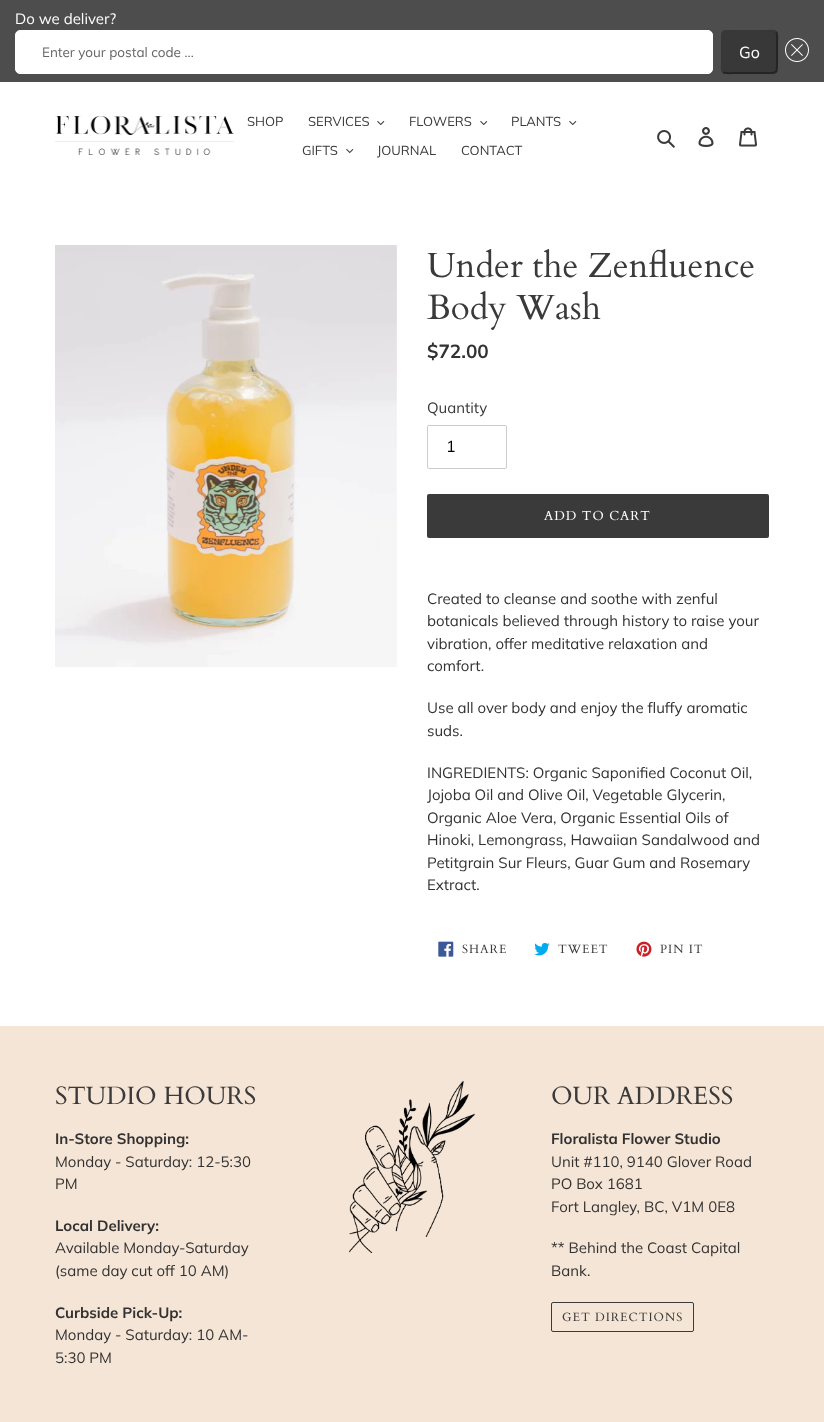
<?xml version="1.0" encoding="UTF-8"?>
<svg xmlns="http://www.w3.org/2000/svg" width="824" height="1422">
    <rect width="100%" height="100%" fill="#FFFFFF"/>
    <rect x="0" y="0" width="824" height="82" fill="#4D4D4D"/>
    <text x="15" y="24" font-family="Muli" font-size="15" fill="#FFFFFF">Do we deliver?</text>
    <rect x="15.5" y="30.5" width="697" height="43" rx="4.5" fill="#FFFFFF" stroke="#FFFFFF"/>
    <text x="42" y="57" font-family="Muli" font-size="13.5" fill="#666666">Enter your postal code ...</text>
    <rect x="721" y="30" width="57" height="44" rx="5" fill="#383838"/>
    <path d="M 776 32 C 778 34 777 38.5 777 40.5 V 63.5 C 777 74.5 776.5 73 765 73 H 734 C 732 73 725.5 74 723 72" fill="none" stroke="#252525" stroke-width="2"/>
    <path d="M 723 72 C 721 70 722 65.5 722 63.5 V 40.5 C 722 29.5 722.5 31 734 31 H 765 C 767 31 773.5 30 776 32" fill="none" stroke="#383838" stroke-width="2"/>
    <text x="739" y="58" font-family="Muli" font-size="16" fill="#FFFFFF">Go</text>
    <image x="785" y="38" width="24" height="24" href="img_01.png"/>
    <image x="55" y="116" width="179" height="39" href="img_02.png"/>
    <text x="247" y="126" font-family="Muli" font-size="13" fill="#3A3A3A">SHOP</text>
    <text x="308" y="126" font-family="Muli" font-size="13" fill="#3A3A3A">SERVICES</text>
    <image x="377" y="121" width="8" height="4" href="img_03.png"/>
    <text x="409" y="126" font-family="Muli" font-size="13" fill="#3A3A3A">FLOWERS</text>
    <image x="480" y="121" width="7" height="4" href="img_04.png"/>
    <text x="511" y="126" font-family="Muli" font-size="13" fill="#3A3A3A">PLANTS</text>
    <image x="569" y="121" width="8" height="4" href="img_03.png"/>
    <text x="302" y="155" font-family="Muli" font-size="13" fill="#3A3A3A">GIFTS</text>
    <image x="346" y="149" width="8" height="4" href="img_03.png"/>
    <text x="377" y="155" font-family="Muli" font-size="13" fill="#3A3A3A">JOURNAL</text>
    <text x="461" y="155" font-family="Muli" font-size="13" fill="#3A3A3A">CONTACT</text>
    <image x="657" y="130" width="18" height="18" href="img_05.png"/>
    <image x="698" y="127" width="16" height="20" href="img_06.png"/>
    <image x="739" y="127" width="18" height="20" href="img_07.png"/>
    <image x="55" y="245" width="342" height="422" href="img_08.png"/>
    <text font-family="Cardo" font-size="35" fill="#3A3A3A">
        <tspan x="427" y="277">Under the Zenfluence</tspan>
        <tspan x="427" y="319">Body Wash</tspan>
    </text>
    <text x="427" y="358" font-family="Muli" font-size="19" font-weight="700" fill="#333232">$72.00</text>
    <text x="427" y="413" font-family="Muli" font-size="15" fill="#3A3A3A">Quantity</text>
    <rect x="427.5" y="425.5" width="79" height="43" rx="1.5" fill="none" stroke="#CCCCCC"/>
    <text x="446" y="452" font-family="Muli" font-size="16" fill="#000000">1</text>
    <rect x="427" y="494" width="342" height="44" rx="2" fill="#3A3A3A"/>
    <text x="544" y="520" font-family="Cardo" font-size="13" letter-spacing="1" fill="#FFFFFF">ADD TO CART</text>
    <text font-family="Muli" font-size="15" fill="#333232">
        <tspan x="427" y="604">Created to cleanse and soothe with zenful</tspan>
        <tspan x="427" y="626">botanicals believed through history to raise your</tspan>
        <tspan x="427" y="649">vibration, offer meditative relaxation and</tspan>
        <tspan x="427" y="671">comfort.</tspan>
    </text>
    <text font-family="Muli" font-size="15" fill="#333232">
        <tspan x="427" y="713">Use all over body and enjoy the fluffy aromatic</tspan>
        <tspan x="427" y="736">suds.</tspan>
    </text>
    <text font-family="Muli" font-size="15" fill="#333232">
        <tspan x="427" y="778">INGREDIENTS: Organic Saponified Coconut Oil,</tspan>
        <tspan x="427" y="800">Jojoba Oil and Olive Oil, Vegetable Glycerin,</tspan>
        <tspan x="427" y="823">Organic Aloe Vera, Organic Essential Oils of</tspan>
        <tspan x="427" y="845">Hinoki, Lemongrass, Hawaiian Sandalwood and</tspan>
        <tspan x="427" y="868">Petitgrain Sur Fleurs, Guar Gum and Rosemary</tspan>
        <tspan x="427" y="890">Extract.</tspan>
    </text>
    <image x="438" y="941" width="16" height="16" href="img_09.png"/>
    <text x="462" y="953" font-family="Cardo" font-size="12" letter-spacing="1" fill="#3A3A3A">SHARE</text>
    <image x="534" y="942" width="16" height="14" href="img_10.png"/>
    <text x="558" y="953" font-family="Cardo" font-size="12" letter-spacing="1" fill="#3A3A3A">TWEET</text>
    <image x="636" y="941" width="16" height="16" href="img_11.png"/>
    <text x="660" y="953" font-family="Cardo" font-size="12" letter-spacing="1" fill="#3A3A3A">PIN IT</text>
    <rect x="0" y="1026" width="824" height="396" fill="#F5E5D6"/>
    <text x="55" y="1104" font-family="Cardo" font-size="25" fill="#3A3A3A">STUDIO HOURS</text>
    <text x="55" y="1144" font-family="Muli" font-size="15" font-weight="700" fill="#333232">In-Store Shopping:</text>
    <text font-family="Muli" font-size="15" fill="#333232">
        <tspan x="55" y="1167">Monday - Saturday: 12-5:30</tspan>
        <tspan x="55" y="1189">PM</tspan>
    </text>
    <text x="55" y="1231" font-family="Muli" font-size="15" font-weight="700" fill="#333232">Local Delivery:</text>
    <text font-family="Muli" font-size="15" fill="#333232">
        <tspan x="55" y="1253">Available Monday-Saturday</tspan>
        <tspan x="55" y="1276">(same day cut off 10 AM)</tspan>
    </text>
    <text x="55" y="1318" font-family="Muli" font-size="15" font-weight="700" fill="#333232">Curbside Pick-Up:</text>
    <text font-family="Muli" font-size="15" fill="#333232">
        <tspan x="55" y="1340">Monday - Saturday: 10 AM-</tspan>
        <tspan x="55" y="1363">5:30 PM</tspan>
    </text>
    <image x="349" y="1081" width="126" height="172" href="img_12.png"/>
    <text x="551" y="1104" font-family="Cardo" font-size="25" fill="#3A3A3A">OUR ADDRESS</text>
    <text x="551" y="1144" font-family="Muli" font-size="15" font-weight="700" fill="#333232">Floralista Flower Studio</text>
    <text font-family="Muli" font-size="15" fill="#333232">
        <tspan x="551" y="1167">Unit #110, 9140 Glover Road</tspan>
        <tspan x="551" y="1189">PO Box 1681</tspan>
        <tspan x="551" y="1212">Fort Langley, BC, V1M 0E8</tspan>
    </text>
    <text font-family="Muli" font-size="15" fill="#333232">
        <tspan x="551" y="1253">** Behind the Coast Capital</tspan>
        <tspan x="551" y="1276">Bank.</tspan>
    </text>
    <rect x="551.5" y="1302.5" width="142" height="29" rx="1.5" fill="none" stroke="#3A3A3A"/>
    <text x="562" y="1321" font-family="Cardo" font-size="12" letter-spacing="1" fill="#3A3A3A">GET DIRECTIONS</text>
</svg>
